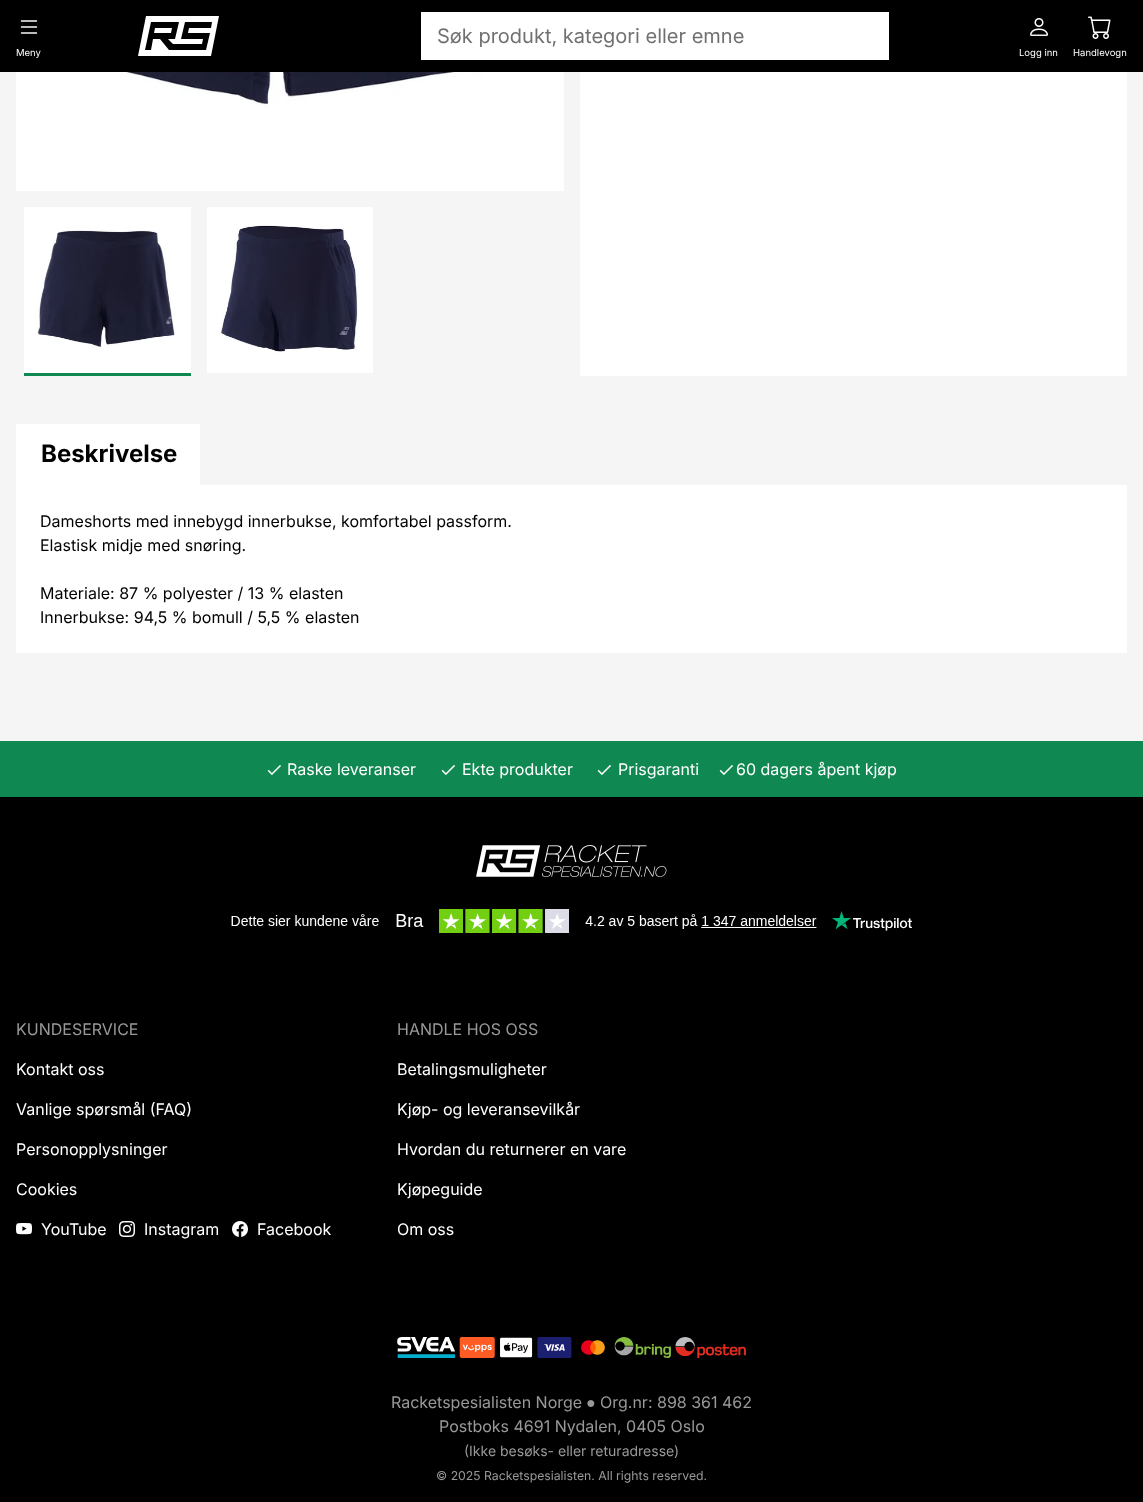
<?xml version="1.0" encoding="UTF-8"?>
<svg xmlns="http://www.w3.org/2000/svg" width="1143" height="1502">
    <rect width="100%" height="100%" fill="#F5F5F5"/>
    <rect x="0" y="0" width="1143" height="72" fill="#000000"/>
    <path d="M 212 22 H 185 L 181 39 H 203 L 202 44 H 173 L 168 39 H 175 L 179 22 H 151 L 145 50 H 151 L 153 39 H 160 L 169 50 H 206 L 210 33 H 188 L 189 28 H 211 Z M 219 16 L 211 56 H 138 L 146 16 Z M 155 28 H 172 L 171 33 H 154 Z" fill="#FFFFFF" fill-rule="evenodd"/>
    <rect x="421" y="12" width="468" height="48" fill="#FFFFFF"/>
    <text x="437" y="43" font-family="Inter" font-size="20" fill="#707070">Søk produkt, kategori eller emne</text>
    <image x="20" y="20" width="18" height="14" href="img_01.png"/>
    <text x="16" y="56" font-family="Inter" font-size="9.5" fill="#FFFFFF">Meny</text>
    <image x="1030" y="18" width="18" height="18" href="img_02.png"/>
    <text x="1019" y="56" font-family="Inter" font-size="9.5" fill="#FFFFFF">Logg inn</text>
    <image x="1088" y="16" width="23" height="23" href="img_03.png"/>
    <text x="1073" y="56" font-family="Inter" font-size="9.5" fill="#FFFFFF">Handlevogn</text>
    <rect x="16" y="72" width="548" height="119" fill="#FFFFFF"/>
    <image x="61" y="72" width="450" height="35" href="img_04.png"/>
    <rect x="24" y="373" width="167" height="3" fill="#0F8852"/>
    <image x="24" y="207" width="167" height="166" href="img_05.png"/>
    <image x="207" y="207" width="166" height="166" href="img_06.png"/>
    <rect x="580" y="72" width="547" height="304" fill="#FFFFFF"/>
    <rect x="16" y="424" width="184" height="61" fill="#FFFFFF"/>
    <text x="41" y="462" font-family="Inter" font-size="24" font-weight="700" fill="#000000">Beskrivelse</text>
    <rect x="16" y="485" width="1111" height="168" fill="#FFFFFF"/>
    <text font-family="Inter" font-size="16" fill="#000000">
        <tspan x="40" y="527">Dameshorts med innebygd innerbukse, komfortabel passform.</tspan>
        <tspan x="40" y="551">Elastisk midje med snøring.</tspan>
    </text>
    <text font-family="Inter" font-size="16" fill="#000000">
        <tspan x="40" y="599">Materiale: 87 % polyester / 13 % elasten</tspan>
        <tspan x="40" y="623">Innerbukse: 94,5 % bomull / 5,5 % elasten</tspan>
    </text>
    <rect x="0" y="741" width="1143" height="56" fill="#0F8852"/>
    <image x="267" y="765" width="14" height="11" href="img_07.png"/>
    <text x="287" y="775" font-family="Inter" font-size="16" fill="#FFFFFF">Raske leveranser</text>
    <image x="441" y="765" width="14" height="11" href="img_07.png"/>
    <text x="462" y="775" font-family="Inter" font-size="16" fill="#FFFFFF">Ekte produkter</text>
    <image x="597" y="765" width="14" height="11" href="img_07.png"/>
    <text x="618" y="775" font-family="Inter" font-size="16" fill="#FFFFFF">Prisgaranti</text>
    <image x="719" y="765" width="14" height="11" href="img_07.png"/>
    <text x="736" y="775" font-family="Inter" font-size="16" fill="#FFFFFF">60 dagers åpent kjøp</text>
    <rect x="0" y="797" width="1143" height="705" fill="#000000"/>
    <image x="476" y="845" width="191" height="32" href="img_08.png"/>
    <image x="231" y="909" width="681" height="24" href="img_09.png"/>
    <text x="16" y="1035" font-family="Inter" font-size="16" fill="#999999">KUNDESERVICE</text>
    <text x="16" y="1075" font-family="Inter" font-size="16" fill="#FFFFFF">Kontakt oss</text>
    <text x="16" y="1115" font-family="Inter" font-size="16" fill="#FFFFFF">Vanlige spørsmål (FAQ)</text>
    <text x="16" y="1155" font-family="Inter" font-size="16" fill="#FFFFFF">Personopplysninger</text>
    <text x="16" y="1195" font-family="Inter" font-size="16" fill="#FFFFFF">Cookies</text>
    <image x="16" y="1223" width="16" height="12" href="img_10.png"/>
    <text x="41" y="1235" font-family="Inter" font-size="16" fill="#FFFFFF">YouTube</text>
    <image x="119" y="1221" width="16" height="16" href="img_11.png"/>
    <text x="144" y="1235" font-family="Inter" font-size="16" fill="#FFFFFF">Instagram</text>
    <image x="232" y="1221" width="16" height="16" href="img_12.png"/>
    <text x="257" y="1235" font-family="Inter" font-size="16" fill="#FFFFFF">Facebook</text>
    <text x="397" y="1035" font-family="Inter" font-size="16" fill="#999999">HANDLE HOS OSS</text>
    <text x="397" y="1075" font-family="Inter" font-size="16" fill="#FFFFFF">Betalingsmuligheter</text>
    <text x="397" y="1115" font-family="Inter" font-size="16" fill="#FFFFFF">Kjøp- og leveransevilkår</text>
    <text x="397" y="1155" font-family="Inter" font-size="16" fill="#FFFFFF">Hvordan du returnerer en vare</text>
    <text x="397" y="1195" font-family="Inter" font-size="16" fill="#FFFFFF">Kjøpeguide</text>
    <text x="397" y="1235" font-family="Inter" font-size="16" fill="#FFFFFF">Om oss</text>
    <image x="397" y="1337" width="349" height="21" href="img_13.png"/>
    <text x="391" y="1408" font-family="Inter" font-size="16" fill="#999999">Racketspesialisten Norge</text>
    <text x="586" y="1408" font-family="Liberation Sans" font-size="16" fill="#999999">●</text>
    <text x="600" y="1408" font-family="Inter" font-size="16" fill="#999999">Org.nr: 898 361 462</text>
    <text x="439" y="1432" font-family="Inter" font-size="16" fill="#999999">Postboks 4691 Nydalen, 0405 Oslo</text>
    <text x="464" y="1456" font-family="Inter" font-size="14" fill="#999999">(Ikke besøks- eller returadresse)</text>
    <text x="436" y="1480" font-family="Inter" font-size="12.25" fill="#999999">© 2025 Racketspesialisten. All rights reserved.</text>
</svg>
